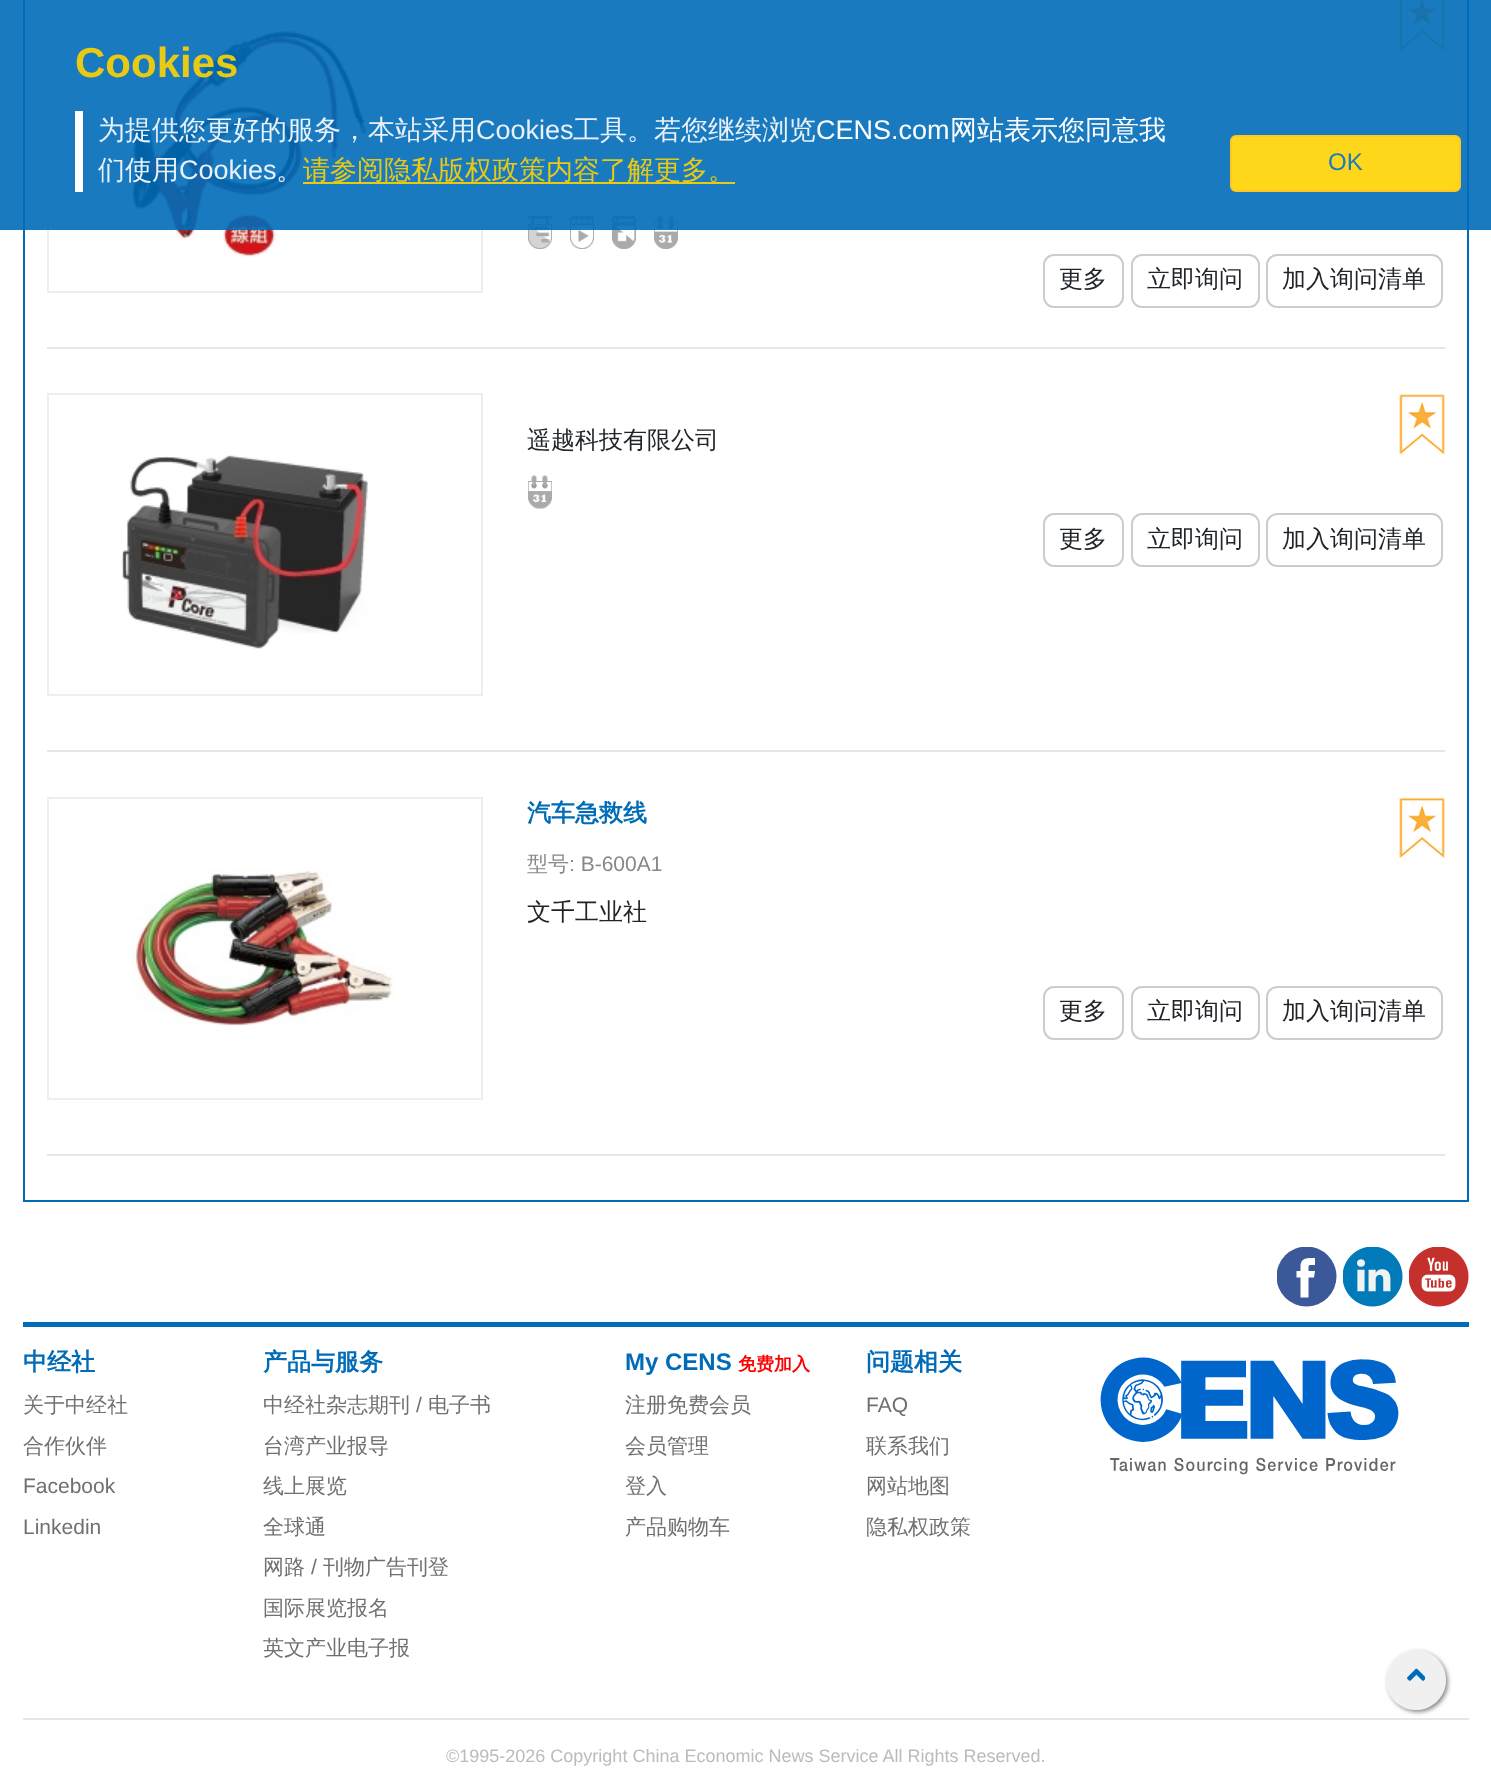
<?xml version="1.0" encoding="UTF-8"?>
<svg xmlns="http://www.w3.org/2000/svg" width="1491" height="1784">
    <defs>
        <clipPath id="clip1"><rect x="1277" y="1247" width="60" height="60"/></clipPath>
        <clipPath id="clip2"><path d="M 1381 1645 H 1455 V 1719 H 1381 Z M 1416 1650 C 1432.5 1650 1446 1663.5 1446 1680 C 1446 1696.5 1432.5 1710 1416 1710 C 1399.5 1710 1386 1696.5 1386 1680 C 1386 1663.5 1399.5 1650 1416 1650 Z" clip-rule="evenodd"/></clipPath>
        <filter id="blur1" x="-50%" y="-200%" width="200%" height="500%"><feGaussianBlur stdDeviation="2"/></filter>
    </defs>
    <rect width="100%" height="100%" fill="#FFFFFF"/>
    <rect x="24" y="-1" width="1444" height="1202" fill="none" stroke="#006CB8" stroke-width="2"/>
    <rect x="48" y="-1" width="434" height="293" fill="none" stroke="#EEEEEE" stroke-width="2"/>
    <image x="131" y="31" width="236" height="227" href="img_01.png"/>
    <image x="1399" y="0" width="46" height="51" href="img_02.png"/>
    <image x="528" y="216" width="24" height="33" href="img_03.png"/>
    <image x="570" y="216" width="24" height="33" href="img_04.png"/>
    <image x="612" y="216" width="24" height="33" href="img_05.png"/>
    <image x="654" y="216" width="24" height="33" href="img_06.png"/>
    <rect x="0" y="0" width="1491" height="230" fill="#006CB8" fill-opacity="0.9"/>
    <text x="75" y="77" font-family="Liberation Sans" font-size="42" font-weight="700" fill="#E8C913">Cookies</text>
    <rect x="75" y="111" width="8" height="81" fill="#FFFFFF"/>
    <text x="98" y="139" font-family="WenQuanYi Zen Hei" font-size="27" font-weight="500" fill="#E8F1F8">为提供您更好的服务，本站采用</text>
    <text x="476" y="139" font-family="Liberation Sans" font-size="27" fill="#E8F1F8">Cookies</text>
    <text x="573" y="139" font-family="WenQuanYi Zen Hei" font-size="27" font-weight="500" fill="#E8F1F8">工具。若您继续浏览</text>
    <text x="816" y="139" font-family="Liberation Sans" font-size="27" fill="#FFFFFF">CENS.com</text>
    <text x="950" y="139" font-family="WenQuanYi Zen Hei" font-size="27" font-weight="500" fill="#FFFFFF">网站表示您同意我</text>
    <text x="98" y="179" font-family="WenQuanYi Zen Hei" font-size="27" font-weight="500" fill="#E8F1F8">们使用</text>
    <text x="179" y="179" font-family="Liberation Sans" font-size="27" fill="#E8F1F8">Cookies</text>
    <text x="276" y="179" font-family="WenQuanYi Zen Hei" font-size="27" font-weight="500" fill="#E8F1F8">。</text>
    <rect x="303" y="182" width="432" height="2" fill="#FFD200" fill-opacity="0.9"/>
    <text x="303" y="179" font-family="WenQuanYi Zen Hei" font-size="27" font-weight="500" fill="#E8C913">请参阅隐私版权政策内容了解更多。</text>
    <rect x="1231" y="136" width="229" height="55" rx="5" fill="#FFD71A" stroke="#FFC720" stroke-width="2"/>
    <text x="1328" y="170" font-family="Liberation Sans" font-size="24" fill="#1A7BBF">OK</text>
    <rect x="1044" y="255" width="79" height="52" rx="10" fill="none" stroke="#CCCCCC" stroke-width="2"/>
    <text x="1059" y="287" font-family="WenQuanYi Zen Hei" font-size="24" font-weight="500" fill="#212529">更多</text>
    <rect x="1132" y="255" width="127" height="52" rx="10" fill="none" stroke="#CCCCCC" stroke-width="2"/>
    <text x="1147" y="287" font-family="WenQuanYi Zen Hei" font-size="24" font-weight="500" fill="#212529">立即询问</text>
    <rect x="1267" y="255" width="175" height="52" rx="10" fill="none" stroke="#CCCCCC" stroke-width="2"/>
    <text x="1282" y="287" font-family="WenQuanYi Zen Hei" font-size="24" font-weight="500" fill="#212529">加入询问清单</text>
    <rect x="47" y="347" width="1398" height="2" fill="#E6E6E6"/>
    <rect x="48" y="394" width="434" height="301" fill="none" stroke="#EEEEEE" stroke-width="2"/>
    <image x="121" y="455" width="247" height="194" href="img_07.png"/>
    <image x="1399" y="394" width="46" height="61" href="img_08.png"/>
    <text x="527" y="448" font-family="WenQuanYi Zen Hei" font-size="24" font-weight="500" fill="#212529">遥越科技有限公司</text>
    <image x="528" y="475" width="24" height="34" href="img_09.png"/>
    <rect x="1044" y="514" width="79" height="52" rx="10" fill="none" stroke="#CCCCCC" stroke-width="2"/>
    <text x="1059" y="547" font-family="WenQuanYi Zen Hei" font-size="24" font-weight="500" fill="#212529">更多</text>
    <rect x="1132" y="514" width="127" height="52" rx="10" fill="none" stroke="#CCCCCC" stroke-width="2"/>
    <text x="1147" y="547" font-family="WenQuanYi Zen Hei" font-size="24" font-weight="500" fill="#212529">立即询问</text>
    <rect x="1267" y="514" width="175" height="52" rx="10" fill="none" stroke="#CCCCCC" stroke-width="2"/>
    <text x="1282" y="547" font-family="WenQuanYi Zen Hei" font-size="24" font-weight="500" fill="#212529">加入询问清单</text>
    <rect x="47" y="750" width="1398" height="2" fill="#E6E6E6"/>
    <rect x="48" y="798" width="434" height="301" fill="none" stroke="#EEEEEE" stroke-width="2"/>
    <image x="132" y="868" width="264" height="168" href="img_10.png"/>
    <image x="1399" y="798" width="46" height="60" href="img_11.png"/>
    <text x="527" y="821" font-family="WenQuanYi Zen Hei" font-size="24" font-weight="700" fill="#006CB8">汽车急救线</text>
    <text x="527" y="871" font-family="WenQuanYi Zen Hei" font-size="21" font-weight="500" fill="#888888">型号</text>
    <text x="569" y="871" font-family="Liberation Sans" font-size="21" fill="#888888">: B-600A1</text>
    <text x="527" y="920" font-family="WenQuanYi Zen Hei" font-size="24" font-weight="500" fill="#212529">文千工业社</text>
    <rect x="1044" y="987" width="79" height="52" rx="10" fill="none" stroke="#CCCCCC" stroke-width="2"/>
    <text x="1059" y="1019" font-family="WenQuanYi Zen Hei" font-size="24" font-weight="500" fill="#212529">更多</text>
    <rect x="1132" y="987" width="127" height="52" rx="10" fill="none" stroke="#CCCCCC" stroke-width="2"/>
    <text x="1147" y="1019" font-family="WenQuanYi Zen Hei" font-size="24" font-weight="500" fill="#212529">立即询问</text>
    <rect x="1267" y="987" width="175" height="52" rx="10" fill="none" stroke="#CCCCCC" stroke-width="2"/>
    <text x="1282" y="1019" font-family="WenQuanYi Zen Hei" font-size="24" font-weight="500" fill="#212529">加入询问清单</text>
    <rect x="47" y="1154" width="1398" height="2" fill="#E6E6E6"/>
    <g clip-path="url(#clip1)">
        <circle cx="1306.5" cy="1276.5" r="30" fill="#3B5998"/>
    </g>
    <image x="1343" y="1247" width="60" height="60" href="img_12.png"/>
    <image x="1409" y="1247" width="60" height="60" href="img_13.png"/>
    <path d="M 1314 1277.5 H 1308.5 V 1297.5 H 1300.5 V 1277.5 H 1296.5 V 1271 H 1300.5 V 1265 C 1301.5 1257 1309 1258 1315 1258 V 1265 C 1308 1265 1308.5 1264 1308.5 1271 H 1315 Z" fill="#FFFFFF"/>
    <rect x="23" y="1322" width="1446" height="5" fill="#006CB8"/>
    <text x="23" y="1370" font-family="WenQuanYi Zen Hei" font-size="24" font-weight="700" fill="#006CB8">中经社</text>
    <text font-family="WenQuanYi Zen Hei" font-size="21" font-weight="500" fill="#707070">
        <tspan x="23" y="1412">关于中经社</tspan>
        <tspan x="23" y="1453">合作伙伴</tspan>
    </text>
    <text font-family="Liberation Sans" font-size="21" fill="#707070">
        <tspan x="23" y="1493">Facebook</tspan>
        <tspan x="23" y="1534">Linkedin</tspan>
    </text>
    <text x="263" y="1370" font-family="WenQuanYi Zen Hei" font-size="24" font-weight="700" fill="#006CB8">产品与服务</text>
    <text x="263" y="1412" font-family="WenQuanYi Zen Hei" font-size="21" font-weight="500" fill="#707070">中经社杂志期刊</text>
    <text x="416" y="1412" font-family="Liberation Sans" font-size="21" fill="#707070">/</text>
    <text x="428" y="1412" font-family="WenQuanYi Zen Hei" font-size="21" font-weight="500" fill="#707070">电子书</text>
    <text font-family="WenQuanYi Zen Hei" font-size="21" font-weight="500" fill="#707070">
        <tspan x="263" y="1453">台湾产业报导</tspan>
        <tspan x="263" y="1493">线上展览</tspan>
        <tspan x="263" y="1534">全球通</tspan>
        <tspan x="263" y="1574">网路</tspan>
    </text>
    <text x="311" y="1574" font-family="Liberation Sans" font-size="21" fill="#707070">/</text>
    <text x="323" y="1574" font-family="WenQuanYi Zen Hei" font-size="21" font-weight="500" fill="#707070">刊物广告刊登</text>
    <text font-family="WenQuanYi Zen Hei" font-size="21" font-weight="500" fill="#707070">
        <tspan x="263" y="1615">国际展览报名</tspan>
        <tspan x="263" y="1655">英文产业电子报</tspan>
    </text>
    <text x="625" y="1370" font-family="Liberation Sans" font-size="24" font-weight="700" fill="#006CB8">My CENS</text>
    <text x="738" y="1370" font-family="WenQuanYi Zen Hei" font-size="18" font-weight="700" fill="#FF0000">免费加入</text>
    <text font-family="WenQuanYi Zen Hei" font-size="21" font-weight="500" fill="#707070">
        <tspan x="625" y="1412">注册免费会员</tspan>
        <tspan x="625" y="1453">会员管理</tspan>
        <tspan x="625" y="1493">登入</tspan>
        <tspan x="625" y="1534">产品购物车</tspan>
    </text>
    <text x="866" y="1370" font-family="WenQuanYi Zen Hei" font-size="24" font-weight="700" fill="#006CB8">问题相关</text>
    <text x="866" y="1412" font-family="Liberation Sans" font-size="21" fill="#707070">FAQ</text>
    <text font-family="WenQuanYi Zen Hei" font-size="21" font-weight="500" fill="#707070">
        <tspan x="866" y="1453">联系我们</tspan>
        <tspan x="866" y="1493">网站地图</tspan>
        <tspan x="866" y="1534">隐私权政策</tspan>
    </text>
    <image x="1100" y="1357" width="299" height="118" href="img_14.png"/>
    <rect x="23" y="1718" width="1446" height="2" fill="#E6E6E6"/>
    <text x="446" y="1762" font-family="Liberation Sans" font-size="18" fill="#BBBBBB">©1995-2026 Copyright China Economic News Service All Rights Reserved.</text>
    <g clip-path="url(#clip2)">
        <rect x="1388" y="1652" width="60" height="60" rx="30" fill="#888888" filter="url(#blur1)"/>
    </g>
    <circle cx="1416" cy="1680" r="30" fill="#E2E2E2" fill-opacity="0.5"/>
    <image x="1407" y="1668" width="18" height="13" href="img_15.png"/>
</svg>
